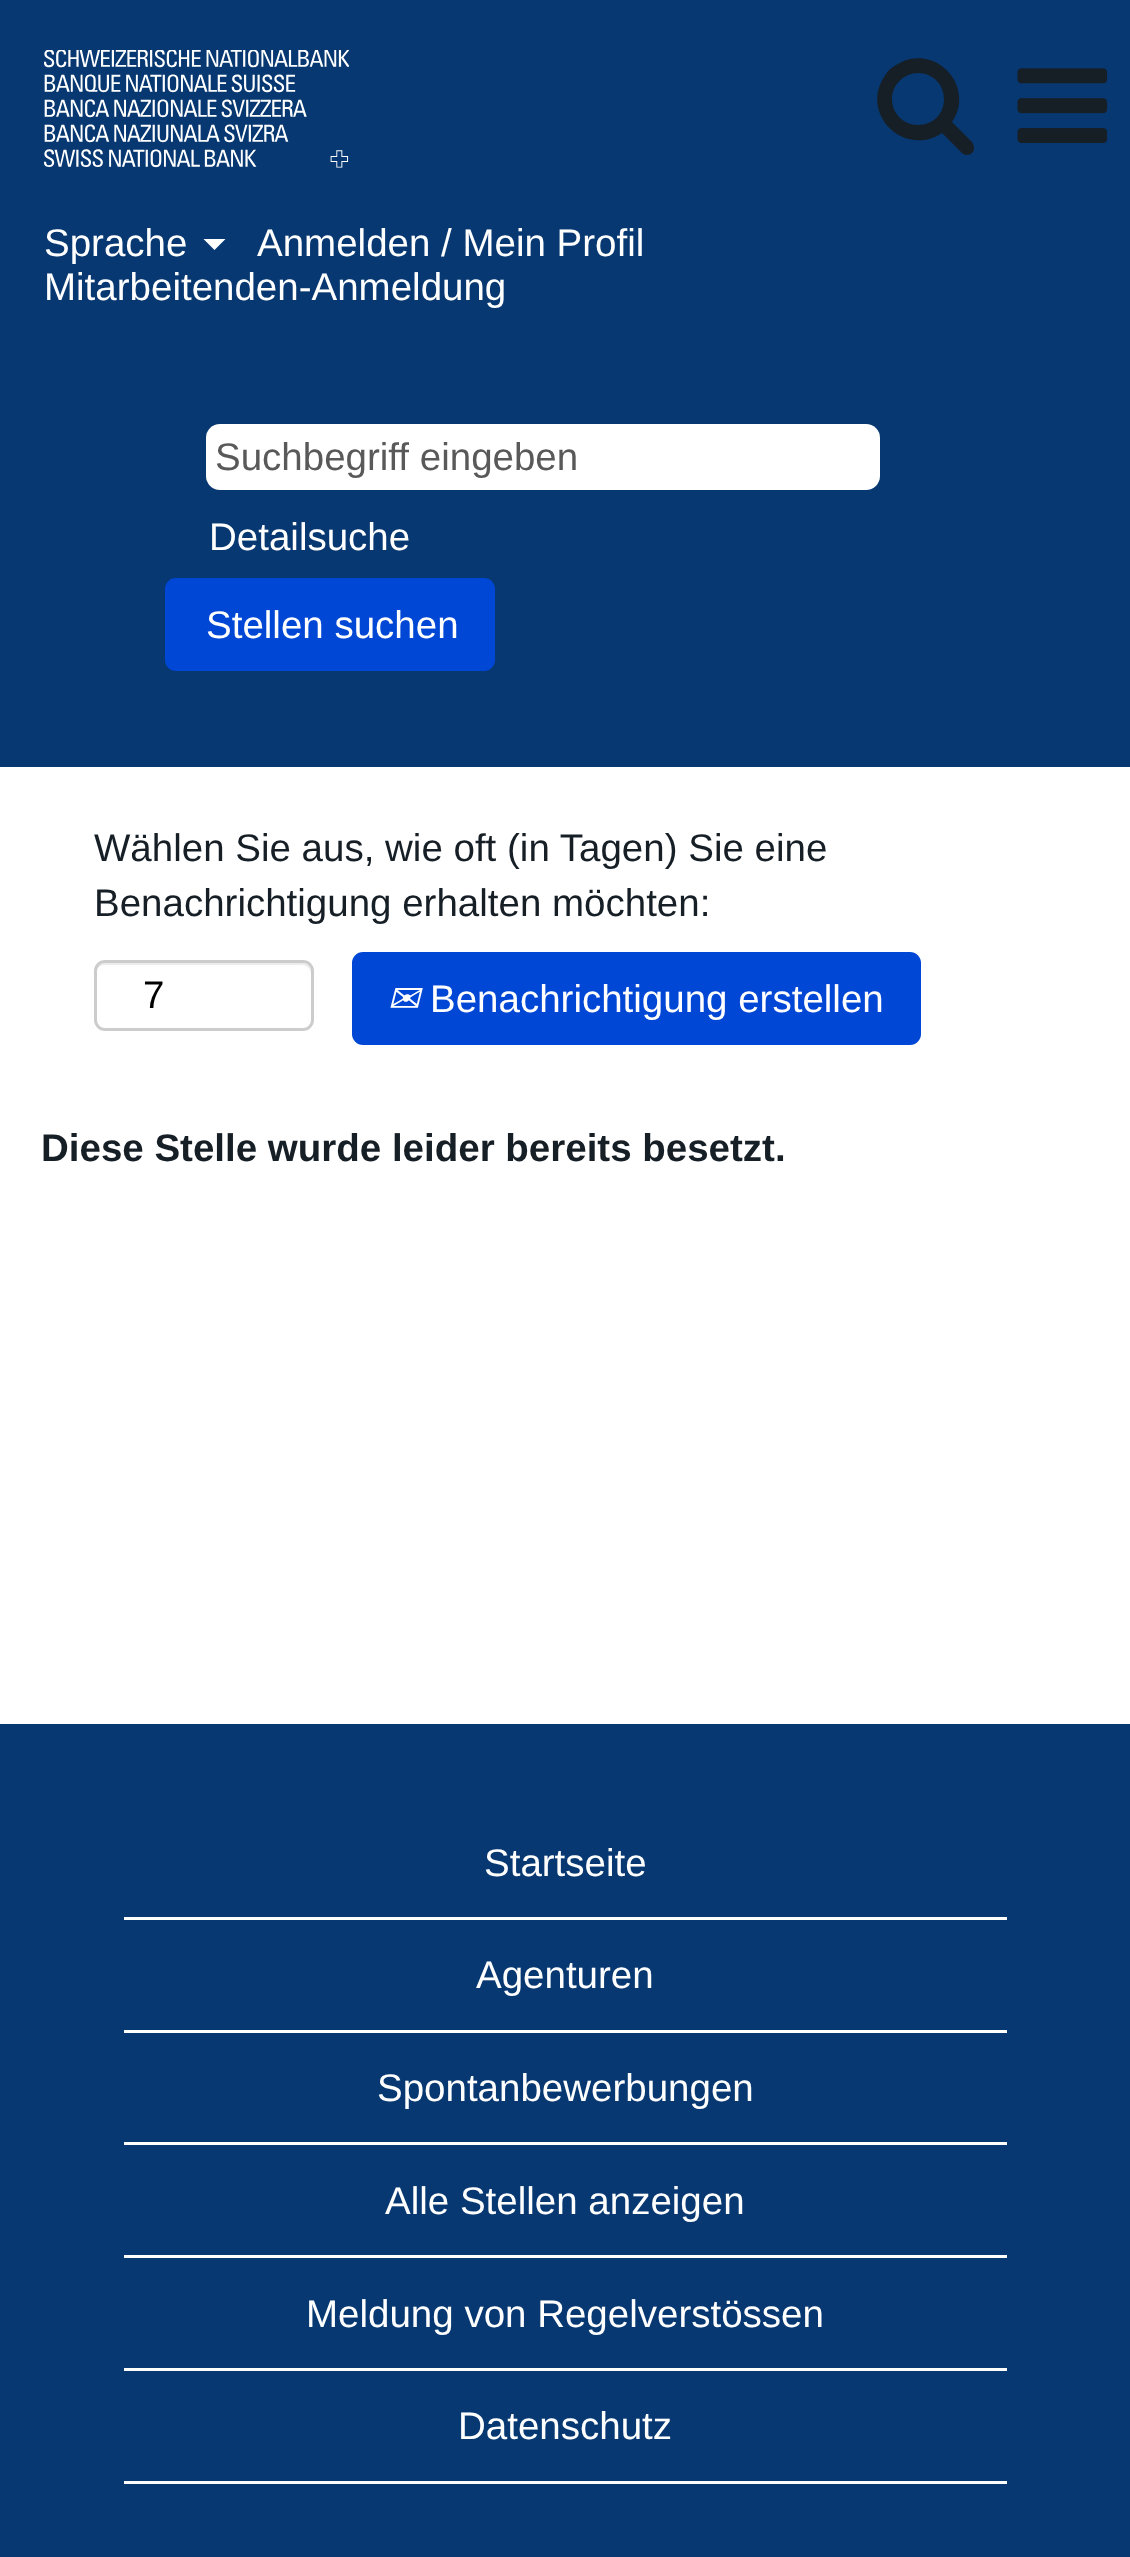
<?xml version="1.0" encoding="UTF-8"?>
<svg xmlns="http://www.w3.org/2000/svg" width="1130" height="2557">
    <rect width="100%" height="100%" fill="#FFFFFF"/>
    <rect x="0" y="0" width="1130" height="767" fill="#073871"/>
    <image x="44" y="50" width="305" height="118" href="img_01.png"/>
    <path d="M 944 99 C 944 114 933 125 918 125 C 904 125 892 114 892 99 C 892 85 904 73 918 73 C 933 73 944 85 944 99 Z M 974 148 C 974 146 973 144 972 142 L 952 122 C 973 93 946 52 910 59 C 902 61 895 65 889 70 C 884 76 880 83 878 91 C 871 127 912 154 942 133 L 962 153 C 963 154 965 155 967 155 C 971 155 974 152 974 148 Z" fill="#161E26"/>
    <image x="1017" y="68" width="91" height="75" href="img_02.png"/>
    <text x="44" y="256" font-family="Liberation Sans" font-size="38.5" fill="#FFFFFF">Sprache</text>
    <path d="M 203.5 239 H 225.5 L 214.5 250 Z" fill="#FFFFFF"/>
    <text x="257" y="256" font-family="Liberation Sans" font-size="38.5" fill="#FFFFFF">Anmelden / Mein Profil</text>
    <text x="44" y="300" font-family="Liberation Sans" font-size="38.5" fill="#FFFFFF">Mitarbeitenden-Anmeldung</text>
    <rect x="206" y="424" width="674" height="66" rx="14" fill="#FFFFFF"/>
    <text x="215" y="470" font-family="Liberation Sans" font-size="38.5" fill="#595959">Suchbegriff eingeben</text>
    <text x="209" y="550" font-family="Liberation Sans" font-size="38.5" fill="#FFFFFF">Detailsuche</text>
    <rect x="165" y="578" width="330" height="93" rx="11" fill="#0047D6"/>
    <text x="206" y="638" font-family="Liberation Sans" font-size="38.5" fill="#FFFFFF">Stellen suchen</text>
    <text font-family="Liberation Sans" font-size="38.5" fill="#161E26">
        <tspan x="94" y="861">Wählen Sie aus, wie oft (in Tagen) Sie eine</tspan>
        <tspan x="94" y="916">Benachrichtigung erhalten möchten:</tspan>
    </text>
    <path d="M 104 965 H 302 C 307 965 311 969 311 974 V 971 C 311 967 307 963 303 963 H 104 C 100 963 96 967 96 971 V 974 C 96 969 100 965 104 965 Z" fill="#ECECEC"/>
    <rect x="95.5" y="961.5" width="217" height="68" rx="9.5" fill="none" stroke="#CCCCCC" stroke-width="3"/>
    <text x="143" y="1008" font-family="Liberation Sans" font-size="38.5" fill="#000000">7</text>
    <rect x="352" y="952" width="569" height="93" rx="11" fill="#0047D6"/>
    <text x="387" y="1012" font-family="DejaVu Sans" font-size="38.5" font-style="italic" fill="#FFFFFF">✉</text>
    <text x="430" y="1012" font-family="Liberation Sans" font-size="38.5" fill="#FFFFFF">Benachrichtigung erstellen</text>
    <text x="41" y="1161" font-family="Liberation Sans" font-size="38.5" font-weight="700" fill="#161E26">Diese Stelle wurde leider bereits besetzt.</text>
    <rect x="0" y="1724" width="1130" height="833" fill="#073871"/>
    <rect x="124" y="1917" width="883" height="3" fill="#FFFFFF"/>
    <text x="484" y="1876" font-family="Liberation Sans" font-size="38.5" fill="#FFFFFF">Startseite</text>
    <rect x="124" y="2030" width="883" height="3" fill="#FFFFFF"/>
    <text x="476" y="1988" font-family="Liberation Sans" font-size="38.5" fill="#FFFFFF">Agenturen</text>
    <rect x="124" y="2142" width="883" height="3" fill="#FFFFFF"/>
    <text x="377" y="2101" font-family="Liberation Sans" font-size="38.5" fill="#FFFFFF">Spontanbewerbungen</text>
    <rect x="124" y="2255" width="883" height="3" fill="#FFFFFF"/>
    <text x="385" y="2214" font-family="Liberation Sans" font-size="38.5" fill="#FFFFFF">Alle Stellen anzeigen</text>
    <rect x="124" y="2368" width="883" height="3" fill="#FFFFFF"/>
    <text x="306" y="2327" font-family="Liberation Sans" font-size="38.5" fill="#FFFFFF">Meldung von Regelverstössen</text>
    <rect x="124" y="2481" width="883" height="3" fill="#FFFFFF"/>
    <text x="458" y="2439" font-family="Liberation Sans" font-size="38.5" fill="#FFFFFF">Datenschutz</text>
</svg>
